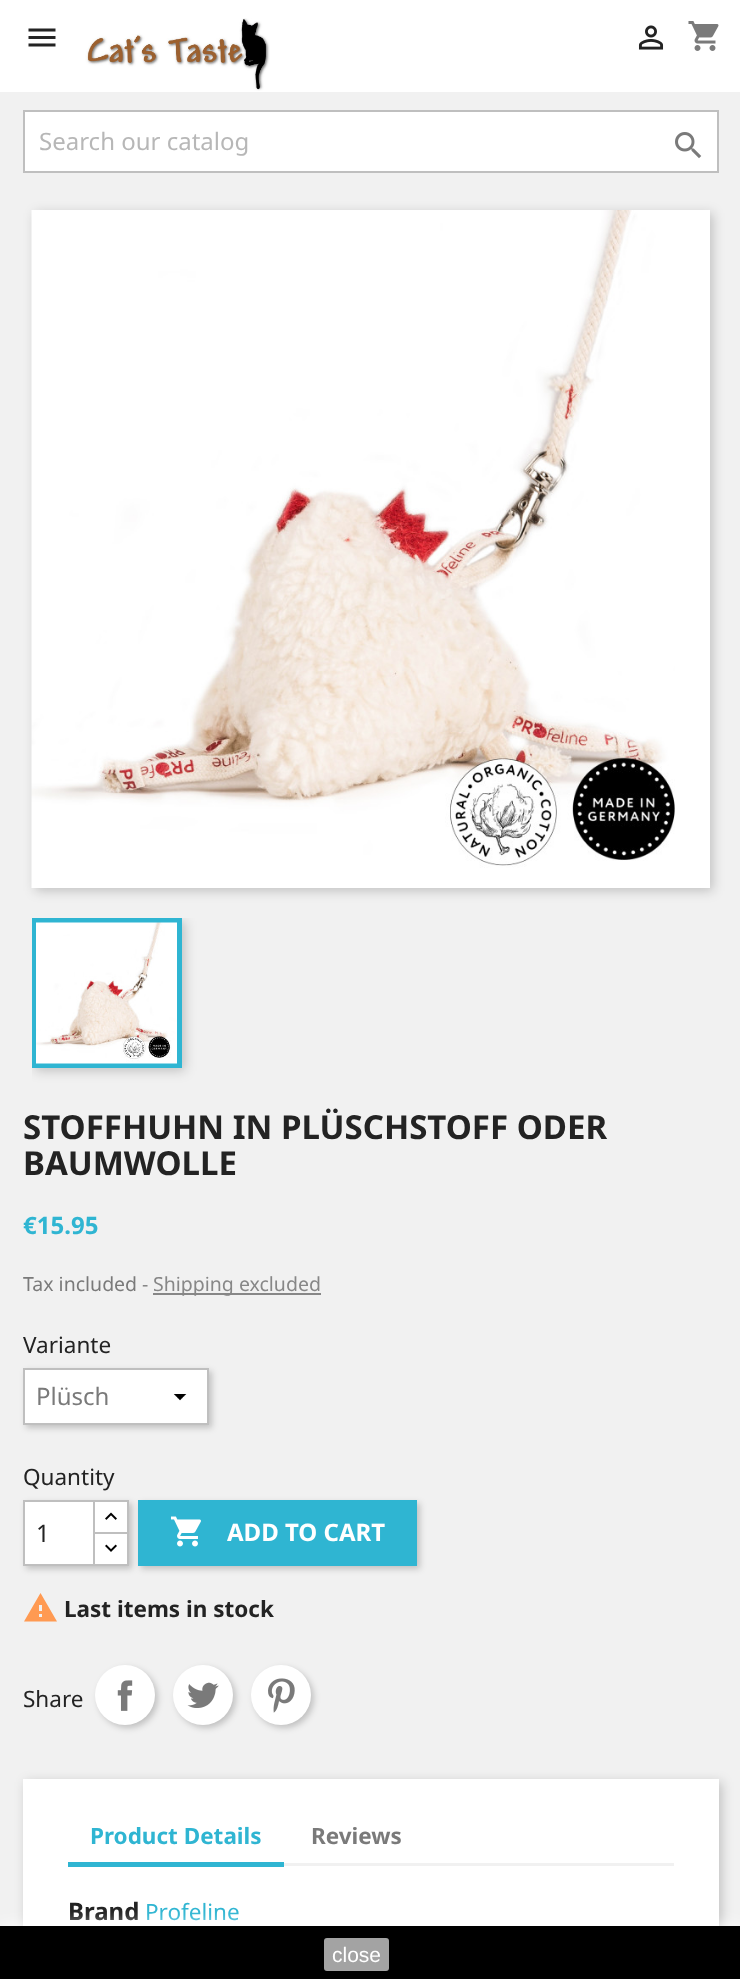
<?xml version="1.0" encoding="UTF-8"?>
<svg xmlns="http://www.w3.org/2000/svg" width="740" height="1979">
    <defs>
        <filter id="blur1" x="-50%" y="-200%" width="200%" height="500%"><feGaussianBlur stdDeviation="6"/></filter>
        <clipPath id="clip1"><rect x="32" y="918" width="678" height="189"/></clipPath>
        <filter id="blur2" x="-50%" y="-200%" width="200%" height="500%"><feGaussianBlur stdDeviation="3"/></filter>
        <filter id="blur3" x="-50%" y="-200%" width="200%" height="500%"><feGaussianBlur stdDeviation="7.5"/></filter>
    </defs>
    <rect width="100%" height="100%" fill="#F1F1F1"/>
    <rect x="0" y="0" width="740" height="92" fill="#FFFFFF"/>
    <image x="28" y="28" width="28" height="19" href="img_01.png"/>
    <image x="85" y="18" width="185" height="73" href="img_02.png"/>
    <image x="638" y="25" width="26" height="25" href="img_03.png"/>
    <image x="688" y="21" width="31" height="30" href="img_04.png"/>
    <rect x="24" y="111" width="694" height="61" fill="#FFFFFF" stroke="#BFBFBF" stroke-width="2"/>
    <text x="39" y="150" font-family="Noto Sans" font-size="24" fill="#B7B7B7">Search our catalog</text>
    <image x="675" y="132" width="27" height="27" href="img_05.png"/>
    <rect x="35" y="213" width="678" height="678" fill="#000000" fill-opacity="0.2" filter="url(#blur1)"/>
    <image x="31" y="210" width="644" height="678" href="img_06.png"/>
    <rect x="675" y="210" width="35" height="678" fill="#FFFFFF"/>
    <g clip-path="url(#clip1)">
        <rect x="35" y="921" width="150" height="150" fill="#000000" fill-opacity="0.2" filter="url(#blur1)"/>
    </g>
    <rect x="34.5" y="920.5" width="145" height="145" fill="none" stroke="#2FB5D2" stroke-width="5"/>
    <image x="36" y="922" width="141" height="142" href="img_07.png"/>
    <text font-family="Noto Sans" font-size="33" font-weight="700" fill="#232323">
        <tspan x="23" y="1139">STOFFHUHN IN PLÜSCHSTOFF ODER</tspan>
        <tspan x="23" y="1175">BAUMWOLLE</tspan>
    </text>
    <text x="23" y="1234" font-family="Noto Sans" font-size="24" font-weight="700" fill="#2FB5D2">€15.95</text>
    <text x="23" y="1291" font-family="Noto Sans" font-size="19.5" fill="#7A7A7A">Tax included</text>
    <text x="142" y="1291" font-family="Noto Sans" font-size="19.5" fill="#878787">-</text>
    <rect x="153" y="1293" width="168" height="2" fill="#878787"/>
    <text x="153" y="1291" font-family="Noto Sans" font-size="19.5" fill="#878787">Shipping excluded</text>
    <text x="23" y="1353" font-family="Noto Sans" font-size="22.5" fill="#232323">Variante</text>
    <rect x="26" y="1371" width="186" height="57" fill="#000000" fill-opacity="0.2" filter="url(#blur2)"/>
    <rect x="25" y="1370" width="182" height="53" fill="#FFFFFF"/>
    <image x="173" y="1394" width="14" height="7" href="img_08.png"/>
    <rect x="24" y="1369" width="184" height="55" fill="none" stroke="#BFBFBF" stroke-width="2"/>
    <text x="36" y="1405" font-family="Noto Sans" font-size="24" fill="#7A7A7A">Plüsch</text>
    <text x="23" y="1485" font-family="Noto Sans" font-size="22.5" fill="#232323">Quantity</text>
    <rect x="141" y="1503" width="279" height="66" fill="#000000" fill-opacity="0.2" filter="url(#blur2)"/>
    <rect x="138" y="1500" width="279" height="66" fill="#2FB5D2"/>
    <rect x="26" y="1503" width="106" height="66" fill="#000000" fill-opacity="0.2" filter="url(#blur2)"/>
    <rect x="95" y="1502" width="32" height="30" fill="#FFFFFF"/>
    <rect x="94" y="1501" width="34" height="33" fill="none" stroke="#BFBFBF" stroke-width="2"/>
    <rect x="94" y="1533" width="34" height="32" fill="#FFFFFF" stroke="#BFBFBF" stroke-width="2"/>
    <rect x="24" y="1501" width="70" height="64" fill="#FFFFFF" stroke="#BFBFBF" stroke-width="2"/>
    <text x="36" y="1542" font-family="Noto Sans" font-size="24" fill="#232323">1</text>
    <image x="105" y="1512" width="12" height="8" href="img_09.png"/>
    <image x="105" y="1544" width="12" height="8" href="img_10.png"/>
    <image x="170" y="1516" width="31" height="31" href="img_11.png"/>
    <text x="227" y="1541" font-family="Noto Sans" font-size="24" font-weight="700" fill="#FFFFFF">ADD TO CART</text>
    <path d="M 42 1611 V 1605 H 39 V 1611 Z M 42 1617 V 1614 H 39 V 1617 Z M 24 1621.5 L 40.5 1593 L 57 1621.5 Z" fill="#FF9A52"/>
    <text x="64" y="1617" font-family="Noto Sans" font-size="22.5" font-weight="700" fill="#232323">Last items in stock</text>
    <text x="23" y="1707" font-family="Noto Sans" font-size="22.5" fill="#232323">Share</text>
    <rect x="98" y="1668" width="60" height="60" rx="30" fill="#000000" fill-opacity="0.2" filter="url(#blur2)"/>
    <circle cx="125" cy="1695" r="30" fill="#FFFFFF"/>
    <image x="117" y="1680" width="16" height="31" href="img_12.png"/>
    <rect x="176" y="1668" width="60" height="60" rx="30" fill="#000000" fill-opacity="0.2" filter="url(#blur2)"/>
    <circle cx="203" cy="1695" r="30" fill="#FFFFFF"/>
    <image x="187" y="1682" width="32" height="26" href="img_13.png"/>
    <rect x="254" y="1668" width="60" height="60" rx="30" fill="#000000" fill-opacity="0.2" filter="url(#blur2)"/>
    <circle cx="281" cy="1695" r="30" fill="#FFFFFF"/>
    <image x="268" y="1678" width="27" height="35" href="img_14.png"/>
    <rect x="26" y="1782" width="696" height="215" fill="#000000" fill-opacity="0.2" filter="url(#blur1)"/>
    <rect x="23" y="1779" width="696" height="147" fill="#FFFFFF"/>
    <rect x="284" y="1863" width="390" height="3" fill="#F1F1F1"/>
    <rect x="68" y="1862" width="216" height="5" fill="#2FB5D2"/>
    <text x="90" y="1844" font-family="Noto Sans" font-size="22.5" font-weight="700" fill="#2FB5D2">Product Details</text>
    <text x="311" y="1844" font-family="Noto Sans" font-size="22.5" font-weight="700" fill="#7A7A7A">Reviews</text>
    <text x="68" y="1920" font-family="Noto Sans" font-size="24" font-weight="700" fill="#232323">Brand</text>
    <text x="145" y="1920" font-family="Noto Sans" font-size="22.5" fill="#2FB5D2">Profeline</text>
    <rect x="0" y="1926" width="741" height="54" fill="#FFFFFF" filter="url(#blur3)"/>
    <rect x="0" y="1926" width="740" height="53" fill="#000000"/>
    <rect x="324" y="1938" width="65" height="33" rx="3" fill="#A3A3A3"/>
    <text x="332" y="1962" font-family="Liberation Sans" font-size="21" fill="#FFFFFF">close</text>
</svg>
